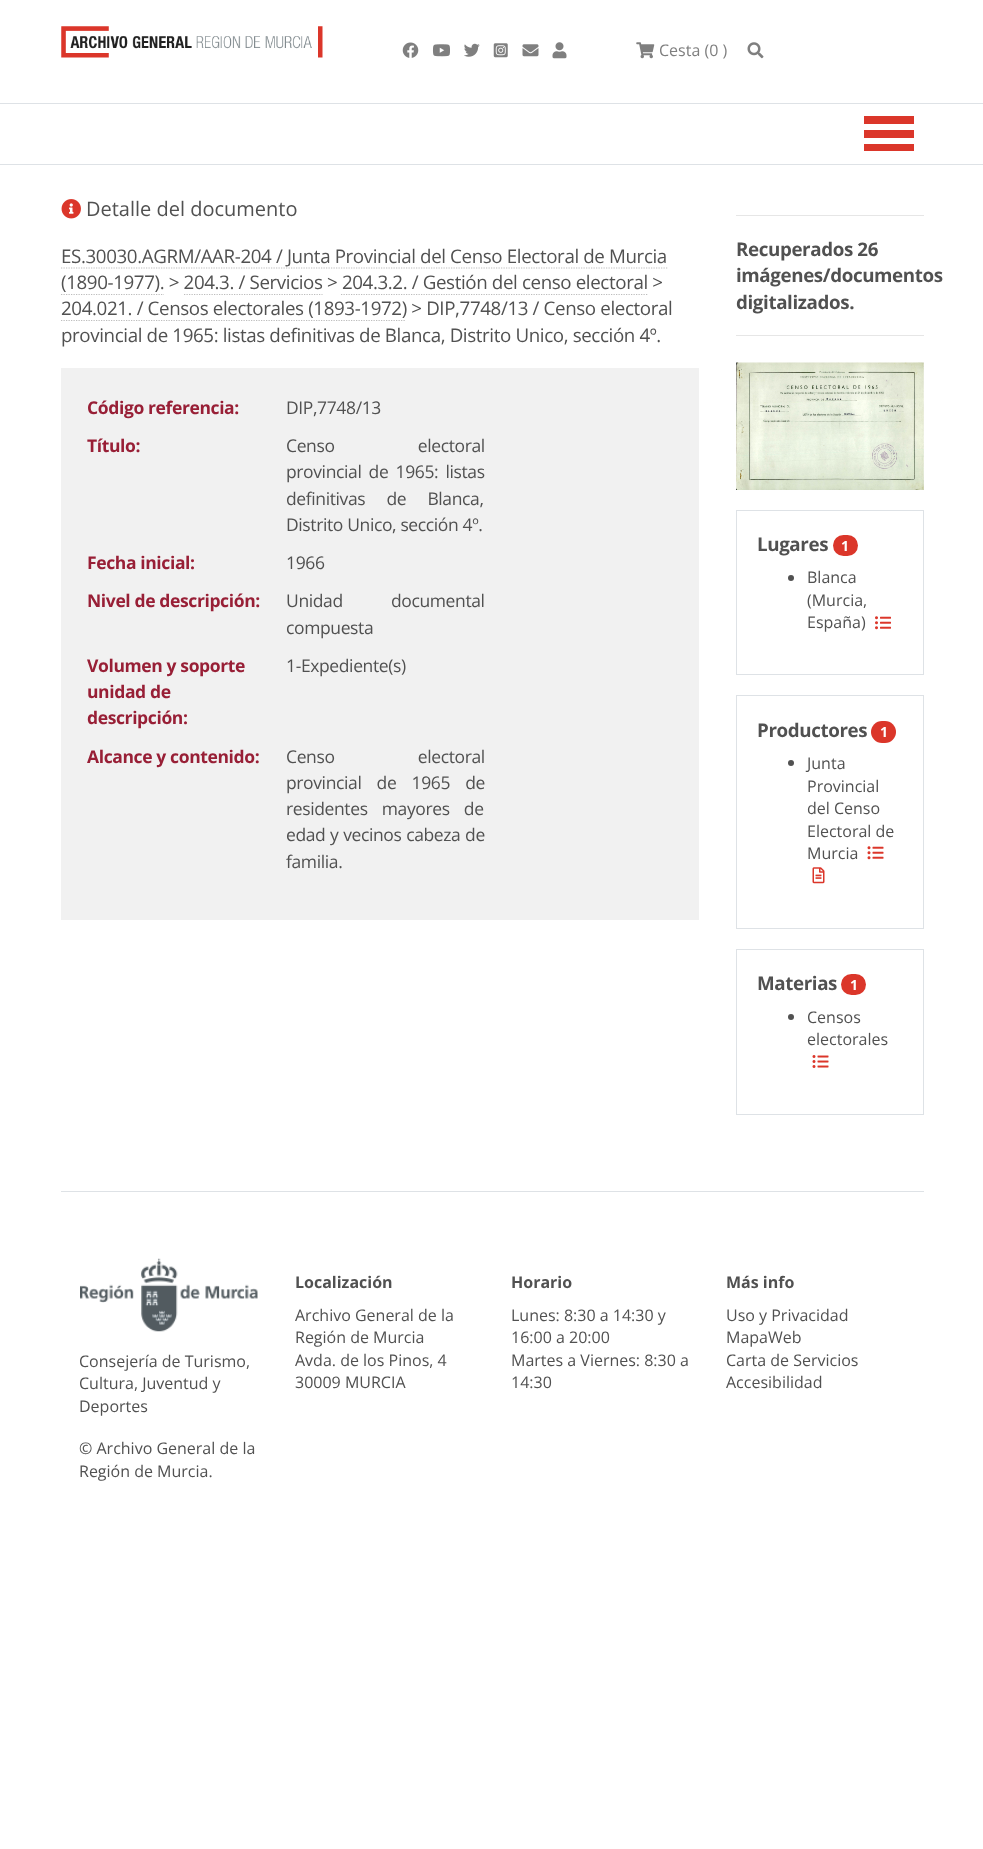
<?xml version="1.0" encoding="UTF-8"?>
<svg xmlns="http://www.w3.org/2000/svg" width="983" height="1849">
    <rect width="100%" height="100%" fill="#FFFFFF"/>
    <image x="61" y="26" width="262" height="32" href="img_01.png"/>
    <image x="402" y="42" width="17" height="16" href="img_02.png"/>
    <image x="432" y="44" width="18" height="13" href="img_03.png"/>
    <image x="464" y="43" width="16" height="14" href="img_04.png"/>
    <image x="493" y="43" width="15" height="15" href="img_05.png"/>
    <image x="522" y="44" width="17" height="13" href="img_06.png"/>
    <image x="552" y="42" width="15" height="17" href="img_07.png"/>
    <image x="636" y="42" width="19" height="17" href="img_08.png"/>
    <text x="659" y="56" font-family="Open Sans" font-size="16" fill="#7F7F7F">Cesta (0 )</text>
    <image x="747" y="42" width="17" height="17" href="img_09.png"/>
    <rect x="0" y="103" width="983" height="1" fill="#DEE2E6"/>
    <rect x="0" y="164" width="983" height="1" fill="#DEE2E6"/>
    <rect x="864" y="116" width="50" height="8" fill="#DB362A"/>
    <rect x="864" y="130" width="50" height="8" fill="#DB362A"/>
    <rect x="864" y="144" width="50" height="7" fill="#DB362A"/>
    <image x="61" y="199" width="20" height="20" href="img_10.png"/>
    <text x="86" y="216" font-family="Open Sans" font-size="20" fill="#515151">Detalle del documento</text>
    <text x="61" y="263" font-family="Open Sans" font-size="18.75" letter-spacing="-0.38" fill="#515151">ES.30030.AGRM/AAR-204 / Junta Provincial del Censo Electoral de Murcia</text>
    <path d="M 61 268 H 667.5" fill="none" stroke="#BDBDBD" stroke-width="1.2" stroke-dasharray="1.25 1.25"/>
    <text x="61" y="289" font-family="Open Sans" font-size="18.75" letter-spacing="-0.38" fill="#515151">(1890-1977). &gt; 204.3. / Servicios &gt; 204.3.2. / Gestión del censo electoral &gt;</text>
    <path d="M 61 294.5 H 164" fill="none" stroke="#BDBDBD" stroke-width="1.2" stroke-dasharray="1.25 1.25"/>
    <path d="M 184 294.5 H 322.5" fill="none" stroke="#BDBDBD" stroke-width="1.2" stroke-dasharray="1.25 1.25"/>
    <path d="M 341 294.5 H 647.5" fill="none" stroke="#BDBDBD" stroke-width="1.2" stroke-dasharray="1.25 1.25"/>
    <text x="61" y="315" font-family="Open Sans" font-size="18.75" letter-spacing="-0.38" fill="#515151">204.021. / Censos electorales (1893-1972) &gt; DIP,7748/13 / Censo electoral</text>
    <path d="M 61 320.5 H 406" fill="none" stroke="#BDBDBD" stroke-width="1.2" stroke-dasharray="1.25 1.25"/>
    <text x="61" y="342" font-family="Open Sans" font-size="18.75" letter-spacing="-0.38" fill="#515151">provincial de 1965: listas definitivas de Blanca, Distrito Unico, sección 4º.</text>
    <rect x="61" y="368" width="638" height="552" fill="#F1F1F1"/>
    <text x="87" y="414" font-family="Open Sans" font-size="17.5" font-weight="700" letter-spacing="-0.38" fill="#981F36">Código referencia:</text>
    <text x="286" y="414" font-family="Open Sans" font-size="17.5" letter-spacing="-0.38" fill="#515151">DIP,7748/13</text>
    <text x="87" y="452" font-family="Open Sans" font-size="17.5" font-weight="700" letter-spacing="-0.38" fill="#981F36">Título:</text>
    <text font-family="Open Sans" font-size="17.5" letter-spacing="-0.38" fill="#515151">
        <tspan x="286" y="452" word-spacing="79">Censo electoral</tspan>
        <tspan x="286" y="478" word-spacing="3">provincial de 1965: listas</tspan>
        <tspan x="286" y="505" word-spacing="17">definitivas de Blanca,</tspan>
        <tspan x="286" y="531">Distrito Unico, sección 4º.</tspan>
    </text>
    <text x="87" y="569" font-family="Open Sans" font-size="17.5" font-weight="700" letter-spacing="-0.38" fill="#981F36">Fecha inicial:</text>
    <text x="286" y="569" font-family="Open Sans" font-size="17.5" letter-spacing="-0.38" fill="#515151">1966</text>
    <text x="87" y="607" font-family="Open Sans" font-size="17.5" font-weight="700" letter-spacing="-0.38" fill="#981F36">Nivel de descripción:</text>
    <text font-family="Open Sans" font-size="17.5" letter-spacing="-0.38" fill="#515151">
        <tspan x="286" y="607" word-spacing="44">Unidad documental</tspan>
        <tspan x="286" y="634">compuesta</tspan>
    </text>
    <text font-family="Open Sans" font-size="17.5" font-weight="700" letter-spacing="-0.38" fill="#981F36">
        <tspan x="87" y="672">Volumen y soporte</tspan>
        <tspan x="87" y="698">unidad de</tspan>
        <tspan x="87" y="724">descripción:</tspan>
    </text>
    <text x="286" y="672" font-family="Open Sans" font-size="17.5" letter-spacing="-0.38" fill="#515151">1-Expediente(s)</text>
    <text x="87" y="763" font-family="Open Sans" font-size="17.5" font-weight="700" letter-spacing="-0.38" fill="#981F36">Alcance y contenido:</text>
    <text font-family="Open Sans" font-size="17.5" letter-spacing="-0.38" fill="#515151">
        <tspan x="286" y="763" word-spacing="79">Censo electoral</tspan>
        <tspan x="286" y="789" word-spacing="11">provincial de 1965 de</tspan>
        <tspan x="286" y="815" word-spacing="10">residentes mayores de</tspan>
        <tspan x="286" y="841" word-spacing="0.5">edad y vecinos cabeza de</tspan>
        <tspan x="286" y="868">familia.</tspan>
    </text>
    <rect x="736" y="215" width="188" height="1" fill="#E6E6E6"/>
    <text font-family="Open Sans" font-size="18.75" font-weight="700" letter-spacing="-0.38" fill="#515151">
        <tspan x="736" y="256">Recuperados 26</tspan>
        <tspan x="736" y="282">imágenes/documentos</tspan>
        <tspan x="736" y="309">digitalizados.</tspan>
    </text>
    <rect x="736" y="335" width="188" height="1" fill="#E6E6E6"/>
    <image x="736" y="362" width="188" height="128" href="img_11.png"/>
    <rect x="736.5" y="510.5" width="187" height="164" fill="none" stroke="#DEE2E6"/>
    <text x="757" y="551" font-family="Open Sans" font-size="18.75" font-weight="700" letter-spacing="-0.38" fill="#515151">Lugares</text>
    <rect x="833" y="535" width="25" height="21" rx="10.5" fill="#DB362A"/>
    <text x="841" y="551" font-family="Open Sans" font-size="14" font-weight="700" letter-spacing="-0.38" fill="#FFFFFF">1</text>
    <circle cx="791" cy="578" r="3" fill="#515151"/>
    <text font-family="Open Sans" font-size="16" fill="#515151">
        <tspan x="807" y="583">Blanca</tspan>
        <tspan x="807" y="606">(Murcia,</tspan>
        <tspan x="807" y="628">España)</tspan>
    </text>
    <image x="875" y="616" width="16" height="14" href="img_12.png"/>
    <rect x="736.5" y="695.5" width="187" height="233" fill="none" stroke="#DEE2E6"/>
    <text x="757" y="737" font-family="Open Sans" font-size="18.75" font-weight="700" letter-spacing="-0.38" fill="#515151">Productores</text>
    <rect x="871" y="721" width="25" height="22" rx="11" fill="#DB362A"/>
    <text x="880" y="737" font-family="Open Sans" font-size="14" font-weight="700" letter-spacing="-0.38" fill="#FFFFFF">1</text>
    <circle cx="791" cy="763" r="3" fill="#515151"/>
    <text font-family="Open Sans" font-size="16" fill="#515151">
        <tspan x="807" y="769">Junta</tspan>
        <tspan x="807" y="792">Provincial</tspan>
        <tspan x="807" y="814">del Censo</tspan>
        <tspan x="807" y="837">Electoral de</tspan>
        <tspan x="807" y="859">Murcia</tspan>
    </text>
    <image x="867" y="846" width="17" height="14" href="img_13.png"/>
    <image x="812" y="867" width="13" height="17" href="img_14.png"/>
    <rect x="736.5" y="949.5" width="187" height="165" fill="none" stroke="#DEE2E6"/>
    <text x="757" y="990" font-family="Open Sans" font-size="18.75" font-weight="700" letter-spacing="-0.38" fill="#515151">Materias</text>
    <rect x="841" y="974" width="25" height="21" rx="10.5" fill="#DB362A"/>
    <text x="850" y="990" font-family="Open Sans" font-size="14" font-weight="700" letter-spacing="-0.38" fill="#FFFFFF">1</text>
    <circle cx="791" cy="1017" r="3" fill="#515151"/>
    <text font-family="Open Sans" font-size="16" fill="#515151">
        <tspan x="807" y="1023">Censos</tspan>
        <tspan x="807" y="1045">electorales</tspan>
    </text>
    <image x="812" y="1055" width="17" height="13" href="img_15.png"/>
    <rect x="61" y="1191" width="863" height="1" fill="#DEE2E6"/>
    <text x="295" y="1288" font-family="Open Sans" font-size="16" font-weight="700" fill="#515151">Localización</text>
    <text font-family="Open Sans" font-size="16" fill="#515151">
        <tspan x="295" y="1321">Archivo General de la</tspan>
        <tspan x="295" y="1343">Región de Murcia</tspan>
        <tspan x="295" y="1366">Avda. de los Pinos, 4</tspan>
        <tspan x="295" y="1388">30009 MURCIA</tspan>
    </text>
    <text x="511" y="1288" font-family="Open Sans" font-size="16" font-weight="700" fill="#515151">Horario</text>
    <text font-family="Open Sans" font-size="16" fill="#515151">
        <tspan x="511" y="1321">Lunes: 8:30 a 14:30 y</tspan>
        <tspan x="511" y="1343">16:00 a 20:00</tspan>
        <tspan x="511" y="1366">Martes a Viernes: 8:30 a</tspan>
        <tspan x="511" y="1388">14:30</tspan>
    </text>
    <text x="726" y="1288" font-family="Open Sans" font-size="16" font-weight="700" fill="#515151">Más info</text>
    <text font-family="Open Sans" font-size="16" fill="#515151">
        <tspan x="726" y="1321">Uso y Privacidad</tspan>
        <tspan x="726" y="1343">MapaWeb</tspan>
        <tspan x="726" y="1366">Carta de Servicios</tspan>
        <tspan x="726" y="1388">Accesibilidad</tspan>
    </text>
    <image x="80" y="1258" width="178" height="74" href="img_16.png"/>
    <text font-family="Open Sans" font-size="16" fill="#515151">
        <tspan x="79" y="1367">Consejería de Turismo,</tspan>
        <tspan x="79" y="1389">Cultura, Juventud y</tspan>
        <tspan x="79" y="1412">Deportes</tspan>
    </text>
    <text font-family="Open Sans" font-size="16" fill="#515151">
        <tspan x="79" y="1454">© Archivo General de la</tspan>
        <tspan x="79" y="1477">Región de Murcia.</tspan>
    </text>
</svg>
